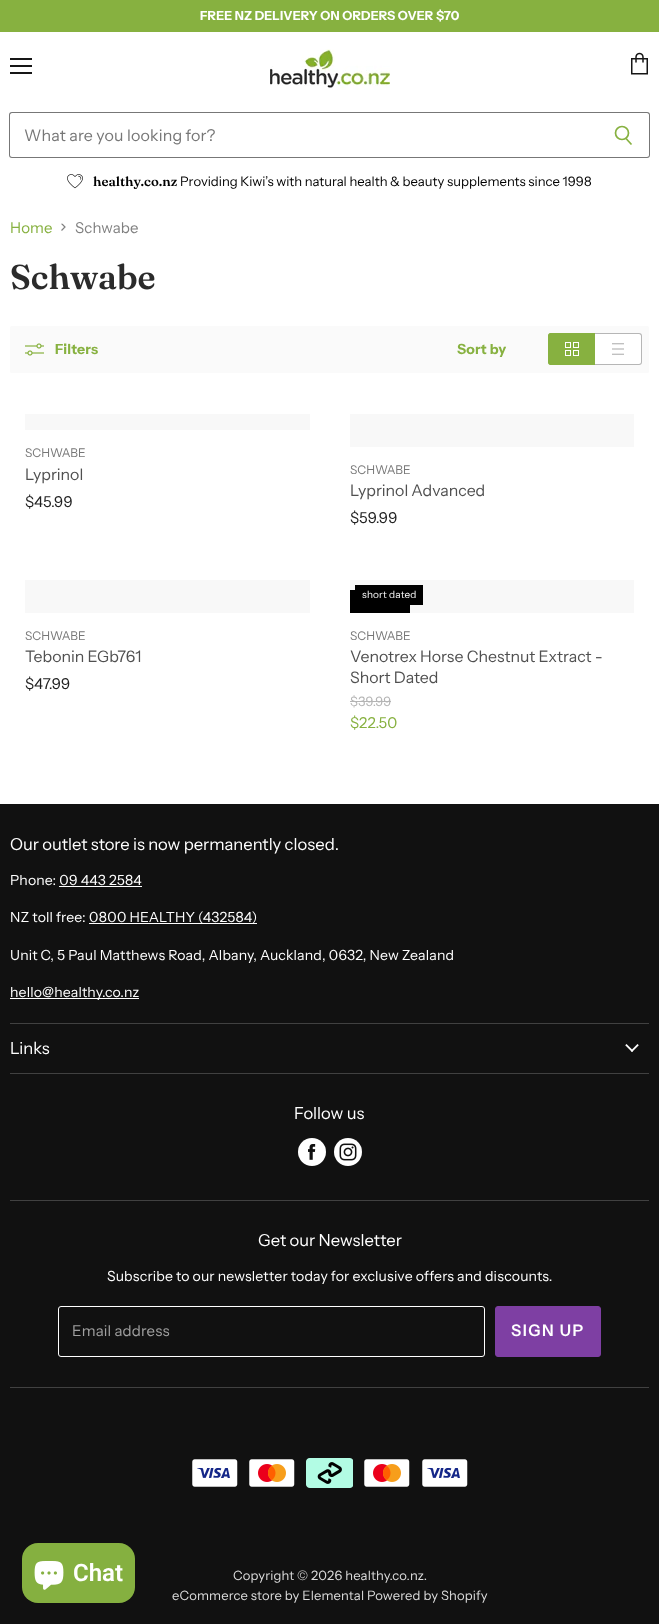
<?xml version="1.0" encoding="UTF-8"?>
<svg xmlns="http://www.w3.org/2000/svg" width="659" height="1624">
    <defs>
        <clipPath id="clip1"><path d="M 61 231.5 V 223.5 H 66 V 231.5 Z"/></clipPath>
    </defs>
    <rect width="100%" height="100%" fill="#FFFFFF"/>
    <rect x="0" y="0" width="659" height="32" fill="#87B140"/>
    <text x="200" y="20" font-family="Instrument Sans" font-size="12.6" font-weight="700" letter-spacing="0.15" fill="#FFFFFF">FREE NZ DELIVERY ON ORDERS OVER $70</text>
    <rect x="10" y="58" width="22" height="2" fill="#161616"/>
    <rect x="10" y="65" width="22" height="2" fill="#161616"/>
    <rect x="10" y="72" width="22" height="2" fill="#161616"/>
    <image x="631" y="52" width="17" height="23" href="img_01.png"/>
    <image x="270" y="49" width="120" height="41" href="img_02.png"/>
    <path d="M 12 112 H 597 V 158 H 12 C 10 158 9 157 9 155 V 115 C 9 113 10 112 12 112 Z M 12 113 H 597 V 157 H 12 C 11 157 10 156 10 155 V 115 C 10 114 11 113 12 113 Z" fill="#777777" fill-rule="evenodd"/>
    <text x="24" y="141" font-family="Instrument Sans" font-size="16" letter-spacing="0.15" fill="#777777">What are you looking for?</text>
    <path d="M 597 112 H 647 C 649 112 650 113 650 115 V 155 C 650 157 649 158 647 158 H 597 Z M 597 113 H 647 C 648 113 649 114 649 115 V 155 C 649 156 648 157 647 157 H 597 Z" fill="#777777" fill-rule="evenodd"/>
    <path d="M 631.5 144.5 L 626 138.5" fill="none" stroke="#87B140" stroke-width="1.7"/>
    <circle cx="622" cy="133" r="6.5" fill="none" stroke="#87B140" stroke-width="1.7"/>
    <image x="67" y="174" width="16" height="15" href="img_03.png"/>
    <text x="93" y="186" font-family="'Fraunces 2'" font-size="13.1" font-weight="600" fill="#000000">healthy.co.nz</text>
    <text x="180" y="186" font-family="Instrument Sans" font-size="13.1" fill="#000000">Providing Kiwi’s with natural health &amp; beauty supplements since 1998</text>
    <text x="10" y="233" font-family="Instrument Sans" font-size="15" letter-spacing="0.15" fill="#87B140">Home</text>
    <g clip-path="url(#clip1)">
        <path d="M 61.5 230.5 L 65 227 L 61.5 223.5" fill="none" stroke="#808080" stroke-width="1.2"/>
    </g>
    <text x="75" y="233" font-family="Instrument Sans" font-size="15" letter-spacing="0.15" fill="#808080">Schwabe</text>
    <text x="10" y="289" font-family="Fraunces" font-size="34.5" font-weight="600" fill="#2B2B2B">Schwabe</text>
    <rect x="10" y="326" width="639" height="47" rx="1.5" fill="#FAFAFA"/>
    <image x="25" y="343" width="19" height="13" href="img_04.png"/>
    <text x="55" y="354" font-family="Instrument Sans" font-size="14.05" font-weight="700" letter-spacing="0.15" fill="#87B140">Filters</text>
    <text x="457" y="354" font-family="Instrument Sans" font-size="14.05" font-weight="700" letter-spacing="0.15" fill="#87B140">Sort by</text>
    <path d="M 551 333 H 595 V 365 H 551 C 549.5 365 548 363.5 548 362 V 336 C 548 334.5 549.5 333 551 333 Z" fill="#87B140"/>
    <path d="M 551 333 H 595 V 365 H 551 C 549 365 548 364 548 362 V 336 C 548 334 549 333 551 333 Z M 551 334 H 595 V 364 H 551 C 550 364 549 363 549 362 V 336 C 549 335 550 334 551 334 Z" fill="#87B140" fill-rule="evenodd"/>
    <image x="565" y="342" width="14" height="14" href="img_05.png"/>
    <path d="M 595 333 H 639 C 640.5 333 642 334.5 642 336 V 362 C 642 363.5 640.5 365 639 365 H 595 Z" fill="#FFFFFF"/>
    <path d="M 595 333 H 639 C 641 333 642 334 642 336 V 362 C 642 364 641 365 639 365 H 595 Z M 595 334 H 639 C 640 334 641 335 641 336 V 362 C 641 363 640 364 639 364 H 595 Z" fill="#B6B6B6" fill-rule="evenodd"/>
    <image x="612" y="343" width="12" height="12" href="img_06.png"/>
    <rect x="25" y="414" width="285" height="16" fill="#F8F8F8"/>
    <text x="25" y="457" font-family="Instrument Sans" font-size="12" fill="#777777">SCHWABE</text>
    <text x="25" y="480" font-family="Instrument Sans" font-size="15.9" fill="#505050">Lyprinol</text>
    <text x="25" y="507" font-family="Instrument Sans" font-size="15" fill="#212121">$45.99</text>
    <rect x="350" y="414" width="284" height="33" fill="#F8F8F8"/>
    <text x="350" y="474" font-family="Instrument Sans" font-size="12" fill="#777777">SCHWABE</text>
    <text x="350" y="496" font-family="Instrument Sans" font-size="15.9" fill="#505050">Lyprinol Advanced</text>
    <text x="350" y="523" font-family="Instrument Sans" font-size="15" fill="#212121">$59.99</text>
    <rect x="25" y="580" width="285" height="33" fill="#F8F8F8"/>
    <text x="25" y="640" font-family="Instrument Sans" font-size="12" fill="#777777">SCHWABE</text>
    <text x="25" y="662" font-family="Instrument Sans" font-size="15.9" fill="#505050">Tebonin EGb761</text>
    <text x="25" y="689" font-family="Instrument Sans" font-size="15" fill="#212121">$47.99</text>
    <rect x="350" y="580" width="284" height="33" fill="#F8F8F8"/>
    <rect x="350" y="590" width="60" height="23" fill="#000000"/>
    <rect x="355" y="585" width="68" height="20" fill="#000000"/>
    <text x="362" y="598" font-family="Instrument Sans" font-size="10" letter-spacing="0.15" fill="#FFFFFF">short dated</text>
    <text x="350" y="640" font-family="Instrument Sans" font-size="12" fill="#777777">SCHWABE</text>
    <text font-family="Instrument Sans" font-size="15.9" fill="#505050">
        <tspan x="350" y="662">Venotrex Horse Chestnut Extract -</tspan>
        <tspan x="350" y="683">Short Dated</tspan>
    </text>
    <text x="350" y="706" font-family="Instrument Sans" font-size="13" fill="#B4B4B4">$39.99</text>
    <rect x="350" y="701" width="41" height="1" fill="#B4B4B4"/>
    <text x="350" y="728" font-family="Instrument Sans" font-size="15" fill="#87B140">$22.50</text>
    <rect x="0" y="804" width="659" height="820" fill="#111111"/>
    <rect x="10" y="1023" width="639" height="1" fill="#414141"/>
    <text x="10" y="850" font-family="Instrument Sans" font-size="16.6" fill="#FFFFFF">Our outlet store is now permanently closed.</text>
    <text x="10" y="885" font-family="Instrument Sans" font-size="14.05" letter-spacing="0.15" fill="#FFFFFF">Phone: 09 443 2584</text>
    <rect x="59" y="886" width="83" height="1" fill="#FFFFFF"/>
    <text x="10" y="922" font-family="Instrument Sans" font-size="14.05" letter-spacing="0.15" fill="#FFFFFF">NZ toll free:</text>
    <rect x="89" y="923" width="168" height="1" fill="#FFFFFF"/>
    <text x="89" y="922" font-family="Instrument Sans" font-size="14.05" letter-spacing="0.15" fill="#FFFFFF">0800 HEALTHY (432584)</text>
    <text x="10" y="960" font-family="Instrument Sans" font-size="14.05" letter-spacing="0.15" fill="#FFFFFF">Unit C, 5 Paul Matthews Road, Albany, Auckland, 0632, New Zealand</text>
    <rect x="10" y="998" width="129" height="1" fill="#FFFFFF"/>
    <text x="10" y="997" font-family="Instrument Sans" font-size="14.05" letter-spacing="0.15" fill="#FFFFFF">hello@healthy.co.nz</text>
    <rect x="10" y="1073" width="639" height="1" fill="#414141"/>
    <text x="10" y="1054" font-family="Instrument Sans" font-size="16.6" fill="#FFFFFF">Links</text>
    <image x="625" y="1044" width="14" height="8" href="img_07.png"/>
    <rect x="10" y="1200" width="639" height="1" fill="#414141"/>
    <text x="294" y="1119" font-family="Instrument Sans" font-size="16.6" fill="#FFFFFF">Follow us</text>
    <circle cx="312" cy="1152" r="14" fill="#FFFFFF"/>
    <image x="308" y="1144" width="8" height="16" href="img_08.png"/>
    <circle cx="348" cy="1152" r="14" fill="#FFFFFF"/>
    <image x="339" y="1143" width="18" height="18" href="img_09.png"/>
    <rect x="10" y="1387" width="639" height="1" fill="#414141"/>
    <text x="258" y="1246" font-family="Instrument Sans" font-size="16.6" fill="#FFFFFF">Get our Newsletter</text>
    <text x="107" y="1281" font-family="Instrument Sans" font-size="14.05" letter-spacing="0.15" fill="#FFFFFF">Subscribe to our newsletter today for exclusive offers and discounts.</text>
    <rect x="58.5" y="1306.5" width="426" height="50" rx="2.5" fill="none" stroke="#FFFFFF"/>
    <text x="72" y="1336" font-family="Instrument Sans" font-size="15" letter-spacing="0.15" fill="#A0A0A0">Email address</text>
    <rect x="495.5" y="1306.5" width="105" height="50" rx="2.5" fill="#7E3FA3" stroke="#7E3FA3"/>
    <text x="511" y="1336" font-family="Instrument Sans" font-size="16" font-weight="600" letter-spacing="1.5" fill="#FFFFFF">SIGN UP</text>
    <image x="192" y="1459" width="46" height="28" href="img_10.png"/>
    <image x="249" y="1459" width="46" height="28" href="img_11.png"/>
    <image x="306" y="1458" width="47" height="30" href="img_12.png"/>
    <image x="364" y="1459" width="46" height="28" href="img_11.png"/>
    <image x="422" y="1459" width="46" height="28" href="img_10.png"/>
    <text x="233" y="1580" font-family="Instrument Sans" font-size="13" letter-spacing="0.15" fill="#DCDCDC">Copyright © 2026 healthy.co.nz.</text>
    <text x="172" y="1600" font-family="Instrument Sans" font-size="13" letter-spacing="0.15" fill="#DCDCDC">eCommerce store by Elemental Powered by Shopify</text>
    <rect x="22" y="1543" width="113" height="60" rx="16" fill="#85B040"/>
    <image x="34" y="1561" width="30" height="29" href="img_13.png"/>
    <text x="73" y="1581" font-family="Roboto" font-size="24" font-weight="600" fill="#FFFFFF">Chat</text>
</svg>
